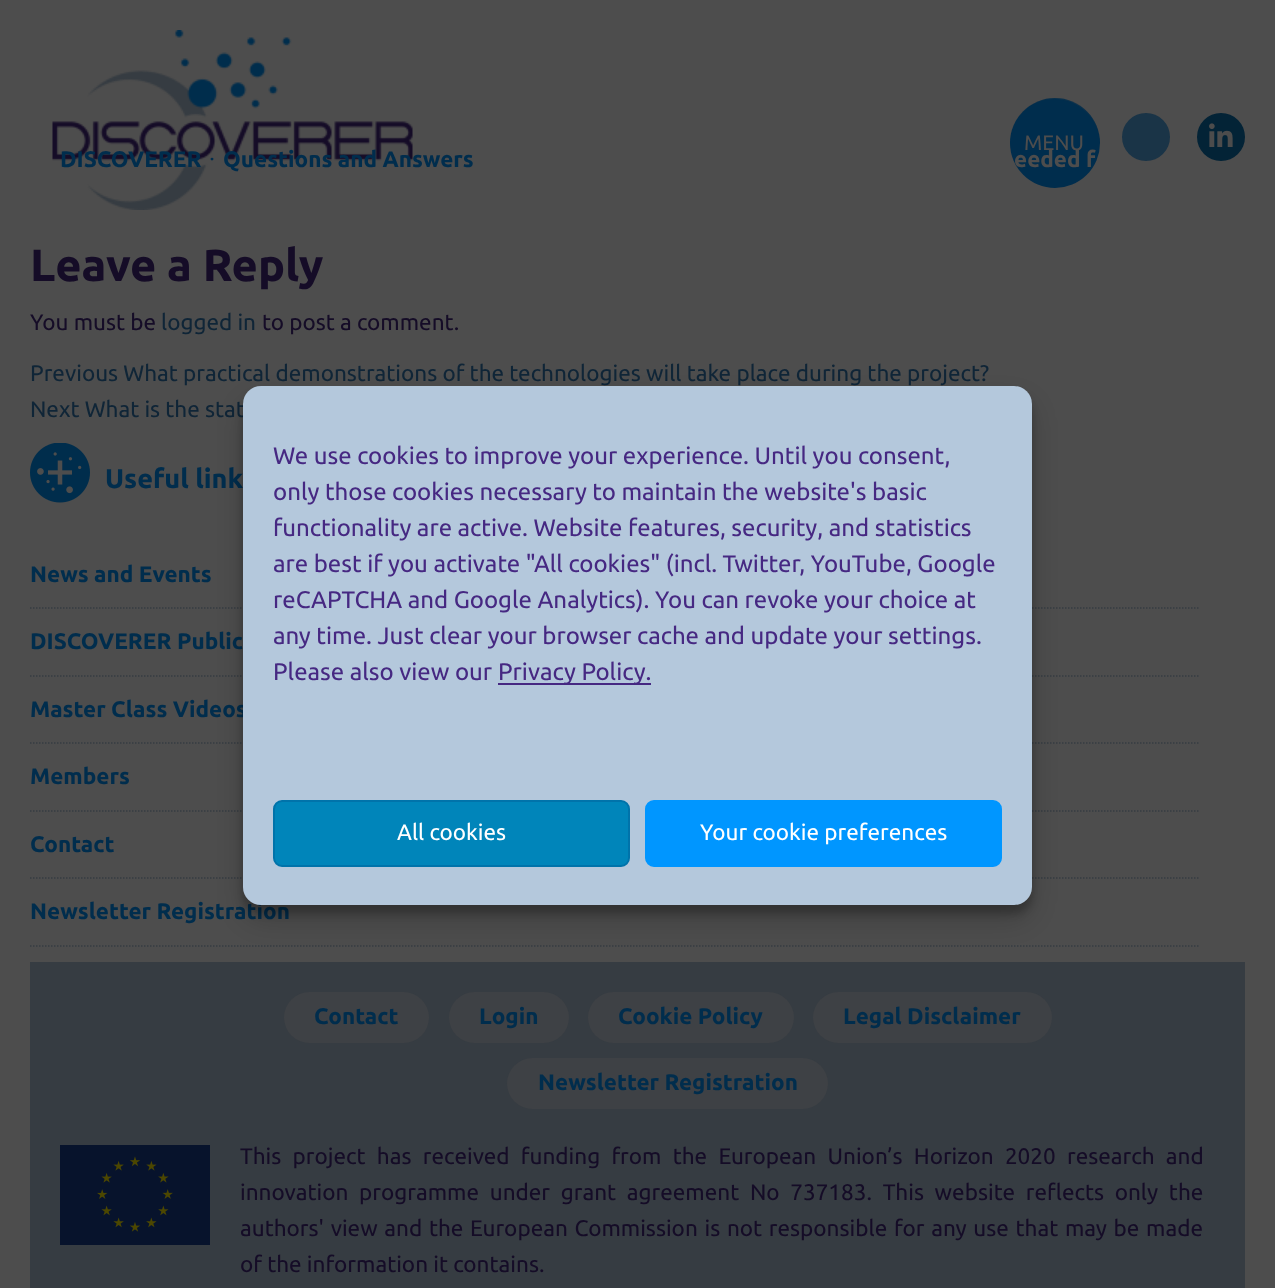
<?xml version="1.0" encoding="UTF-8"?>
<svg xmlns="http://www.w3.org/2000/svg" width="1275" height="1288">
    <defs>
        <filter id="blur1" x="-50%" y="-200%" width="200%" height="500%"><feGaussianBlur stdDeviation="4.5"/></filter>
        <filter id="blur2" x="-50%" y="-200%" width="200%" height="500%"><feGaussianBlur stdDeviation="15"/></filter>
    </defs>
    <rect width="100%" height="100%" fill="#4D4D4D"/>
    <image x="52" y="30" width="361" height="180" href="img_01.png"/>
    <circle cx="1055" cy="143" r="45" fill="#002D4D"/>
    <path d="M 1054 99 C 1079 99 1100 119 1100 144 C 1100 134 1097 125 1092 118 C 1068 81 1010 99 1010 143 C 1010 119 1030 99 1054 99 Z" fill="#4D4D4D" fill-opacity="0.15"/>
    <text x="1024" y="150" font-family="Ubuntu" font-size="21" fill="#4D4D4D">MENU</text>
    <circle cx="1146" cy="137" r="24" fill="#1A3447"/>
    <circle cx="1221" cy="137" r="24" fill="#032336"/>
    <image x="1209" y="123" width="24" height="24" href="img_02.png"/>
    <text x="60" y="167" font-family="Ubuntu" font-size="22.5" font-weight="700" fill="#002D4D">DISCOVERER</text>
    <text x="209" y="167" font-family="Liberation Serif" font-size="24" fill="#002D4D">∙</text>
    <text x="223" y="167" font-family="Ubuntu" font-size="22.5" font-weight="700" fill="#002D4D">Questions and Answers</text>
    <text x="1014" y="167" font-family="Ubuntu" font-size="22.5" font-weight="700" fill="#4D4D4D">eeded f</text>
    <text x="30" y="281" font-family="Ubuntu" font-size="45" font-weight="700" fill="#150C27">Leave a Reply</text>
    <text x="30" y="330" font-family="Ubuntu" font-size="22.5" fill="#150C27">You must be</text>
    <text x="161" y="330" font-family="Ubuntu" font-size="22.5" fill="#0F2537">logged in</text>
    <text x="262" y="330" font-family="Ubuntu" font-size="22.5" fill="#150C27">to post a comment.</text>
    <text font-family="Ubuntu" font-size="22.5" fill="#0F2537">
        <tspan x="30" y="381">Previous What practical demonstrations of the technologies will take place during the project?</tspan>
        <tspan x="30" y="417">Next What is the stat</tspan>
    </text>
    <image x="30" y="443" width="60" height="60" href="img_03.png"/>
    <text x="105" y="488" font-family="Ubuntu" font-size="27" font-weight="700" fill="#002D4D">Useful link</text>
    <path d="M 30 608 H 1200" fill="none" stroke="#363C42" stroke-width="1.5" stroke-dasharray="1.5 1.5"/>
    <text x="30" y="582" font-family="Ubuntu" font-size="22.5" font-weight="700" fill="#002D4D">News and Events</text>
    <path d="M 30 676 H 1200" fill="none" stroke="#363C42" stroke-width="1.5" stroke-dasharray="1.5 1.5"/>
    <text x="30" y="649" font-family="Ubuntu" font-size="22.5" font-weight="700" fill="#002D4D">DISCOVERER Public</text>
    <path d="M 30 743 H 1200" fill="none" stroke="#363C42" stroke-width="1.5" stroke-dasharray="1.5 1.5"/>
    <text x="30" y="717" font-family="Ubuntu" font-size="22.5" font-weight="700" fill="#002D4D">Master Class Videos</text>
    <path d="M 30 811 H 1200" fill="none" stroke="#363C42" stroke-width="1.5" stroke-dasharray="1.5 1.5"/>
    <text x="30" y="784" font-family="Ubuntu" font-size="22.5" font-weight="700" fill="#002D4D">Members</text>
    <path d="M 30 878 H 1200" fill="none" stroke="#363C42" stroke-width="1.5" stroke-dasharray="1.5 1.5"/>
    <text x="30" y="852" font-family="Ubuntu" font-size="22.5" font-weight="700" fill="#002D4D">Contact</text>
    <path d="M 30 946 H 1200" fill="none" stroke="#363C42" stroke-width="1.5" stroke-dasharray="1.5 1.5"/>
    <text x="30" y="919" font-family="Ubuntu" font-size="22.5" font-weight="700" fill="#002D4D">Newsletter Registration</text>
    <rect x="243" y="395" width="789" height="519" rx="18" fill="#000000" fill-opacity="0.23" filter="url(#blur1)"/>
    <rect x="30" y="962" width="1215" height="326" fill="#363C42"/>
    <rect x="243" y="401" width="789" height="519" rx="18" fill="#000000" fill-opacity="0.19" filter="url(#blur2)"/>
    <rect x="243" y="386" width="789" height="519" rx="18" fill="#B4C8DC"/>
    <text font-family="Ubuntu" font-size="24" fill="#462882">
        <tspan x="273" y="464">We use cookies to improve your experience. Until you consent,</tspan>
        <tspan x="273" y="500">only those cookies necessary to maintain the website's basic</tspan>
        <tspan x="273" y="536">functionality are active. Website features, security, and statistics</tspan>
        <tspan x="273" y="572">are best if you activate "All cookies" (incl. Twitter, YouTube, Google</tspan>
        <tspan x="273" y="608">reCAPTCHA and Google Analytics). You can revoke your choice at</tspan>
        <tspan x="273" y="644">any time. Just clear your browser cache and update your settings.</tspan>
        <tspan x="273" y="680">Please also view our</tspan>
    </text>
    <rect x="498" y="683" width="153" height="2" fill="#462882"/>
    <text x="498" y="680" font-family="Ubuntu" font-size="24" fill="#462882">Privacy Policy.</text>
    <rect x="274" y="801" width="355" height="65" rx="8" fill="#0085BA" stroke="#0073AA" stroke-width="2"/>
    <text x="397" y="840" font-family="Ubuntu" font-size="22.5" fill="#FFFFFF">All cookies</text>
    <rect x="646" y="801" width="355" height="65" rx="8" fill="#0096FF" stroke="#0096FF" stroke-width="2"/>
    <text x="700" y="840" font-family="Ubuntu" font-size="22.5" fill="#FFFFFF">Your cookie preferences</text>
    <rect x="284" y="992" width="145" height="51" rx="25.5" fill="#3E4145"/>
    <text x="314" y="1024" font-family="Ubuntu" font-size="22.5" font-weight="700" fill="#002D4D">Contact</text>
    <rect x="449" y="992" width="120" height="51" rx="25.5" fill="#3E4145"/>
    <text x="479" y="1024" font-family="Ubuntu" font-size="22.5" font-weight="700" fill="#002D4D">Login</text>
    <rect x="588" y="992" width="206" height="51" rx="25.5" fill="#3E4145"/>
    <text x="618" y="1024" font-family="Ubuntu" font-size="22.5" font-weight="700" fill="#002D4D">Cookie Policy</text>
    <rect x="813" y="992" width="239" height="51" rx="25.5" fill="#3E4145"/>
    <text x="843" y="1024" font-family="Ubuntu" font-size="22.5" font-weight="700" fill="#002D4D">Legal Disclaimer</text>
    <rect x="507" y="1058" width="321" height="51" rx="25.5" fill="#3E4145"/>
    <text x="538" y="1090" font-family="Ubuntu" font-size="22.5" font-weight="700" fill="#002D4D">Newsletter Registration</text>
    <image x="60" y="1145" width="150" height="100" href="img_04.png"/>
    <text font-family="Ubuntu" font-size="22.5" fill="#150C27">
        <tspan x="240" y="1164" word-spacing="6.1">This project has received funding from the European Union’s Horizon 2020 research and</tspan>
        <tspan x="240" y="1200" word-spacing="5.5">innovation programme under grant agreement No 737183. This website reflects only the</tspan>
        <tspan x="240" y="1236" word-spacing="1.5">authors' view and the European Commission is not responsible for any use that may be made</tspan>
        <tspan x="240" y="1272">of the information it contains.</tspan>
    </text>
</svg>
